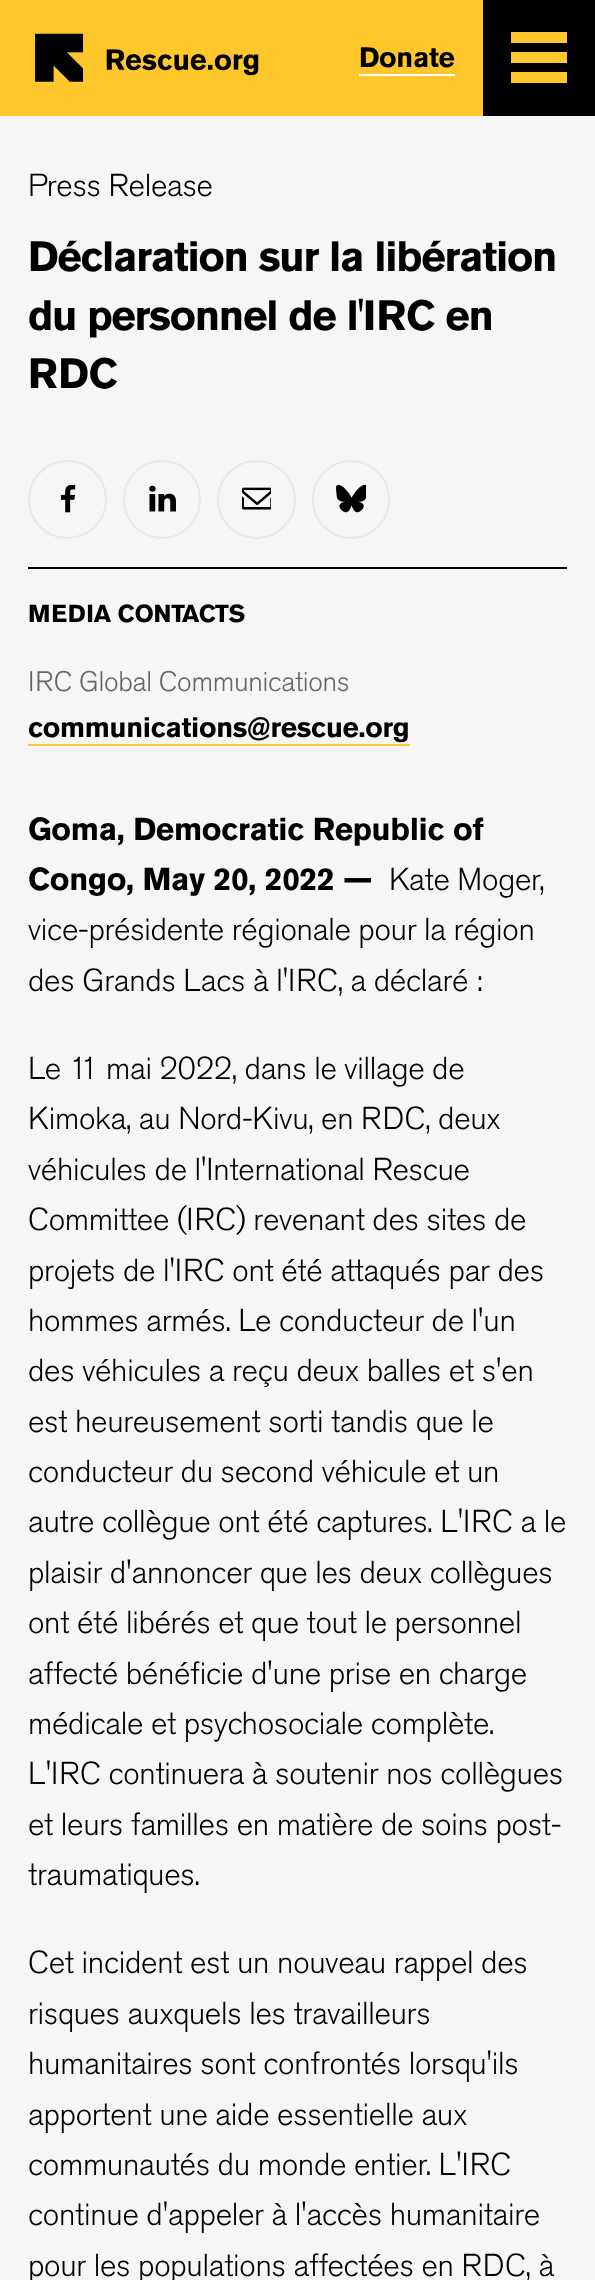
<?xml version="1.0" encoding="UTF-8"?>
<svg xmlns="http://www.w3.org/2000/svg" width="595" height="2280">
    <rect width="100%" height="100%" fill="#F6F6F6"/>
    <rect x="0" y="0" width="483" height="116" fill="#FFC72C"/>
    <image x="35" y="33" width="224" height="49" href="img_01.png"/>
    <text x="359" y="67" font-family="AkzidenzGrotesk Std" font-size="28" font-weight="700" letter-spacing="-0.3" fill="#000000">Donate</text>
    <rect x="359" y="74" width="96" height="2" fill="#FFFFFF"/>
    <rect x="483" y="0" width="112" height="116" fill="#000000"/>
    <path d="M 511 32 H 567 V 43 H 511 Z M 511 52 H 567 V 63 H 511 Z M 511 72 H 567 V 83 H 511 Z" fill="#FFC72C" fill-rule="evenodd"/>
    <text x="28" y="196" font-family="AkzidenzGrotesk Std" font-size="31.5" font-weight="300" letter-spacing="-0.3" fill="#000000">Press Release</text>
    <text font-family="AkzidenzGrotesk Std" font-size="42" font-weight="700" letter-spacing="-1.25" fill="#000000">
        <tspan x="28" y="271">Déclaration sur la libération</tspan>
        <tspan x="28" y="330">du personnel de l'IRC en</tspan>
        <tspan x="28" y="388">RDC</tspan>
    </text>
    <circle cx="67.5" cy="499.5" r="38.5" fill="none" stroke="#E9E9E9" stroke-width="2"/>
    <image x="60" y="484" width="16" height="29" href="img_02.png"/>
    <rect x="124" y="461" width="76" height="77" rx="38" fill="none" stroke="#E9E9E9" stroke-width="2"/>
    <image x="149" y="485" width="27" height="27" href="img_03.png"/>
    <circle cx="256.5" cy="499.5" r="38.5" fill="none" stroke="#E9E9E9" stroke-width="2"/>
    <image x="242" y="487" width="29" height="23" href="img_04.png"/>
    <rect x="313" y="461" width="76" height="77" rx="38" fill="none" stroke="#E9E9E9" stroke-width="2"/>
    <image x="336" y="484" width="30" height="29" href="img_05.png"/>
    <rect x="28" y="567" width="539" height="2" fill="#000000"/>
    <text x="28" y="622" font-family="AkzidenzGrotesk Std" font-size="24.5" font-weight="700" letter-spacing="-0.3" fill="#000000">MEDIA CONTACTS</text>
    <text x="28" y="691" font-family="AkzidenzGrotesk Std" font-size="28" font-weight="300" letter-spacing="-0.3" fill="#666666">IRC Global Communications</text>
    <text x="28" y="737" font-family="AkzidenzGrotesk Std" font-size="28" font-weight="700" letter-spacing="-0.3" fill="#000000">communications@rescue.org</text>
    <rect x="28" y="744" width="382" height="2" fill="#FFC72C"/>
    <text font-family="AkzidenzGrotesk Std" font-size="31.5" font-weight="700" letter-spacing="-0.3" fill="#000000">
        <tspan x="28" y="840">Goma, Democratic Republic of</tspan>
        <tspan x="28" y="890">Congo, May 20, 2022 —</tspan>
    </text>
    <text x="389" y="890" font-family="AkzidenzGrotesk Std" font-size="31.5" font-weight="300" letter-spacing="-0.3" fill="#000000">Kate Moger,</text>
    <text font-family="AkzidenzGrotesk Std" font-size="31.5" font-weight="300" letter-spacing="-0.3" fill="#000000">
        <tspan x="28" y="940">vice-présidente régionale pour la région</tspan>
        <tspan x="28" y="991">des Grands Lacs à l'IRC, a déclaré :</tspan>
    </text>
    <text font-family="AkzidenzGrotesk Std" font-size="31.5" font-weight="300" letter-spacing="-0.3" fill="#000000">
        <tspan x="28" y="1079">Le 11 mai 2022, dans le village de</tspan>
        <tspan x="28" y="1129">Kimoka, au Nord-Kivu, en RDC, deux</tspan>
        <tspan x="28" y="1180">véhicules de l'International Rescue</tspan>
        <tspan x="28" y="1230">Committee (IRC) revenant des sites de</tspan>
        <tspan x="28" y="1281">projets de l'IRC ont été attaqués par des</tspan>
        <tspan x="28" y="1331">hommes armés. Le conducteur de l'un</tspan>
        <tspan x="28" y="1381">des véhicules a reçu deux balles et s'en</tspan>
        <tspan x="28" y="1432">est heureusement sorti tandis que le</tspan>
        <tspan x="28" y="1482">conducteur du second véhicule et un</tspan>
        <tspan x="28" y="1532">autre collègue ont été captures. L'IRC a le</tspan>
        <tspan x="28" y="1583">plaisir d'annoncer que les deux collègues</tspan>
        <tspan x="28" y="1633">ont été libérés et que tout le personnel</tspan>
        <tspan x="28" y="1684">affecté bénéficie d'une prise en charge</tspan>
        <tspan x="28" y="1734">médicale et psychosociale complète.</tspan>
        <tspan x="28" y="1784">L'IRC continuera à soutenir nos collègues</tspan>
        <tspan x="28" y="1835">et leurs familles en matière de soins post-</tspan>
        <tspan x="28" y="1885">traumatiques.</tspan>
    </text>
    <text font-family="AkzidenzGrotesk Std" font-size="31.5" font-weight="300" letter-spacing="-0.3" fill="#000000">
        <tspan x="28" y="1973">Cet incident est un nouveau rappel des</tspan>
        <tspan x="28" y="2024">risques auxquels les travailleurs</tspan>
        <tspan x="28" y="2074">humanitaires sont confrontés lorsqu'ils</tspan>
        <tspan x="28" y="2125">apportent une aide essentielle aux</tspan>
        <tspan x="28" y="2175">communautés du monde entier. L'IRC</tspan>
        <tspan x="28" y="2225">continue d'appeler à l'accès humanitaire</tspan>
        <tspan x="28" y="2276">pour les populations affectées en RDC, à</tspan>
    </text>
</svg>
